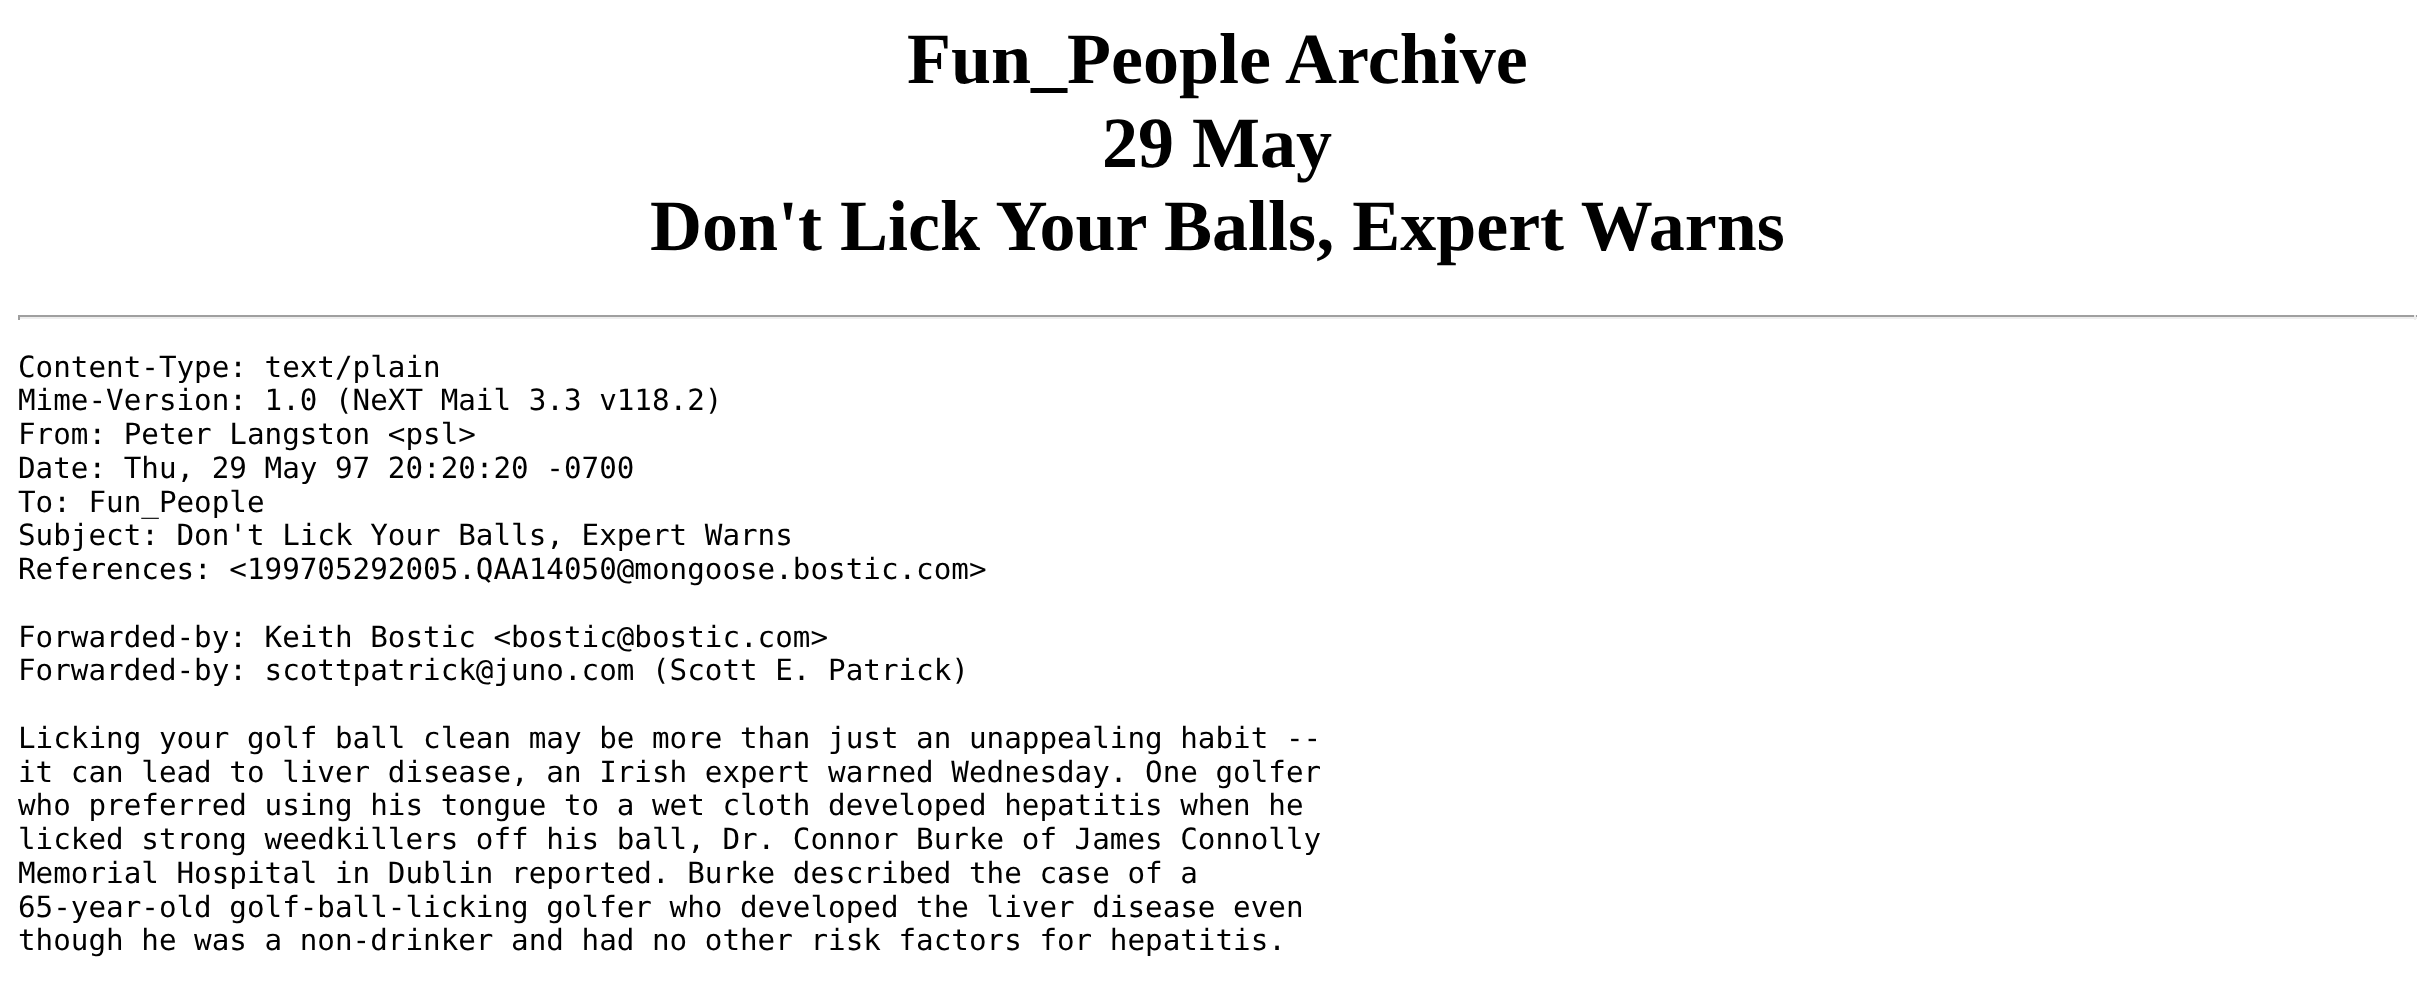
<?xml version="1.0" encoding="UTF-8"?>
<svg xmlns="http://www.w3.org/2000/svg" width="2433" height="1004">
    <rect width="100%" height="100%" fill="#FFFFFF"/>
    <text x="907" y="83" font-family="Liberation Serif" font-size="72" font-weight="700" fill="#000000">Fun_People Archive</text>
    <text x="1102" y="167" font-family="Liberation Serif" font-size="72" font-weight="700" fill="#000000">29 May</text>
    <text x="650" y="250" font-family="Liberation Serif" font-size="72" font-weight="700" fill="#000000">Don't Lick Your Balls, Expert Warns</text>
    <rect x="18" y="315" width="2399" height="2" fill="#9F9F9F"/>
    <rect x="2414" y="315" width="2" height="5" fill="#EEEEEE"/>
    <rect x="18" y="317" width="2399" height="2" fill="#EEEEEE"/>
    <rect x="18" y="315" width="2" height="5" fill="#9F9F9F"/>
    <text font-family="DejaVu Sans Mono" font-size="29.25" fill="#000000">
        <tspan x="18" y="377">Content-Type: text/plain</tspan>
        <tspan x="18" y="410">Mime-Version: 1.0 (NeXT Mail 3.3 v118.2)</tspan>
        <tspan x="18" y="444">From: Peter Langston &lt;psl&gt;</tspan>
        <tspan x="18" y="478">Date: Thu, 29 May 97 20:20:20 -0700</tspan>
        <tspan x="18" y="512">To: Fun_People</tspan>
        <tspan x="18" y="545">Subject: Don't Lick Your Balls, Expert Warns</tspan>
        <tspan x="18" y="579">References: &lt;199705292005.QAA14050@mongoose.bostic.com&gt;</tspan>
    </text>
    <text font-family="DejaVu Sans Mono" font-size="29.25" fill="#000000">
        <tspan x="18" y="647">Forwarded-by: Keith Bostic &lt;bostic@bostic.com&gt;</tspan>
        <tspan x="18" y="680">Forwarded-by: scottpatrick@juno.com (Scott E. Patrick)</tspan>
    </text>
    <text font-family="DejaVu Sans Mono" font-size="29.25" fill="#000000">
        <tspan x="18" y="748">Licking your golf ball clean may be more than just an unappealing habit --</tspan>
        <tspan x="18" y="782">it can lead to liver disease, an Irish expert warned Wednesday. One golfer</tspan>
        <tspan x="18" y="815">who preferred using his tongue to a wet cloth developed hepatitis when he</tspan>
        <tspan x="18" y="849">licked strong weedkillers off his ball, Dr. Connor Burke of James Connolly</tspan>
        <tspan x="18" y="883">Memorial Hospital in Dublin reported. Burke described the case of a</tspan>
        <tspan x="18" y="917">65-year-old golf-ball-licking golfer who developed the liver disease even</tspan>
        <tspan x="18" y="950">though he was a non-drinker and had no other risk factors for hepatitis.</tspan>
    </text>
</svg>
